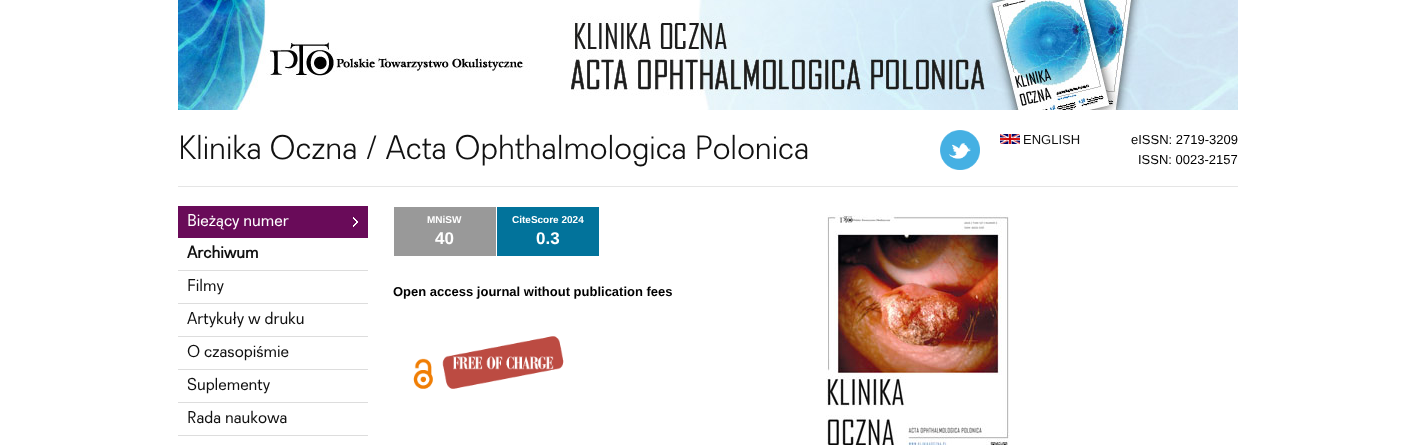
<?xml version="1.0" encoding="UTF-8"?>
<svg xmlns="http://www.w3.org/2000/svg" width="1415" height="445">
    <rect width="100%" height="100%" fill="#FFFFFF"/>
    <image x="178" y="0" width="1060" height="110" href="img_01.png"/>
    <rect x="178" y="186" width="1060" height="1" fill="#E5E5E5"/>
    <text x="178" y="159" font-family="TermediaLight" font-size="33.75" font-weight="300" fill="#111111">Klinika Oczna / Acta Ophthalmologica Polonica</text>
    <image x="940" y="130" width="40" height="40" href="img_02.png"/>
    <image x="1000" y="134" width="20" height="10" href="img_03.png"/>
    <text x="1023" y="144" font-family="Liberation Sans" font-size="13" fill="#111111">ENGLISH</text>
    <text x="1131" y="144" font-family="Liberation Sans" font-size="13" fill="#000000">eISSN: 2719-3209</text>
    <text x="1138" y="164" font-family="Liberation Sans" font-size="13" fill="#000000">ISSN: 0023-2157</text>
    <rect x="178" y="206" width="190" height="32" fill="#690B59"/>
    <image x="353" y="217" width="5" height="10" href="img_04.png"/>
    <text x="187" y="226" font-family="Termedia" font-size="17" fill="#FFFFFF">Bieżący numer</text>
    <rect x="178" y="270" width="190" height="1" fill="#DDDDDD"/>
    <text x="187" y="258" font-family="Termedia" font-size="17" font-weight="700" fill="#111111">Archiwum</text>
    <rect x="178" y="303" width="190" height="1" fill="#DDDDDD"/>
    <text x="187" y="291" font-family="Termedia" font-size="17" fill="#111111">Filmy</text>
    <rect x="178" y="336" width="190" height="1" fill="#DDDDDD"/>
    <text x="187" y="324" font-family="Termedia" font-size="17" fill="#111111">Artykuły w druku</text>
    <rect x="178" y="369" width="190" height="1" fill="#DDDDDD"/>
    <text x="187" y="357" font-family="Termedia" font-size="17" fill="#111111">O czasopiśmie</text>
    <rect x="178" y="402" width="190" height="1" fill="#DDDDDD"/>
    <text x="187" y="390" font-family="Termedia" font-size="17" fill="#111111">Suplementy</text>
    <rect x="178" y="435" width="190" height="1" fill="#DDDDDD"/>
    <text x="187" y="423" font-family="Termedia" font-size="17" fill="#111111">Rada naukowa</text>
    <rect x="394" y="207" width="102" height="49" fill="#999999"/>
    <text x="427" y="223" font-family="Liberation Sans" font-size="10" font-weight="700" fill="#FFFFFF">MNiSW</text>
    <text x="435" y="244" font-family="Liberation Sans" font-size="17" font-weight="700" fill="#FFFFFF">40</text>
    <rect x="497" y="207" width="102" height="49" fill="#02739B"/>
    <text x="512" y="223" font-family="Liberation Sans" font-size="10" font-weight="700" fill="#FFFFFF">CiteScore 2024</text>
    <text x="536" y="244" font-family="Liberation Sans" font-size="17" font-weight="700" fill="#FFFFFF">0.3</text>
    <text x="393" y="296" font-family="Liberation Sans" font-size="13" font-weight="700" fill="#000000">Open access journal without publication fees</text>
    <image x="413" y="336" width="151" height="53" href="img_05.png"/>
    <image x="826" y="215" width="184" height="230" href="img_06.png"/>
</svg>
